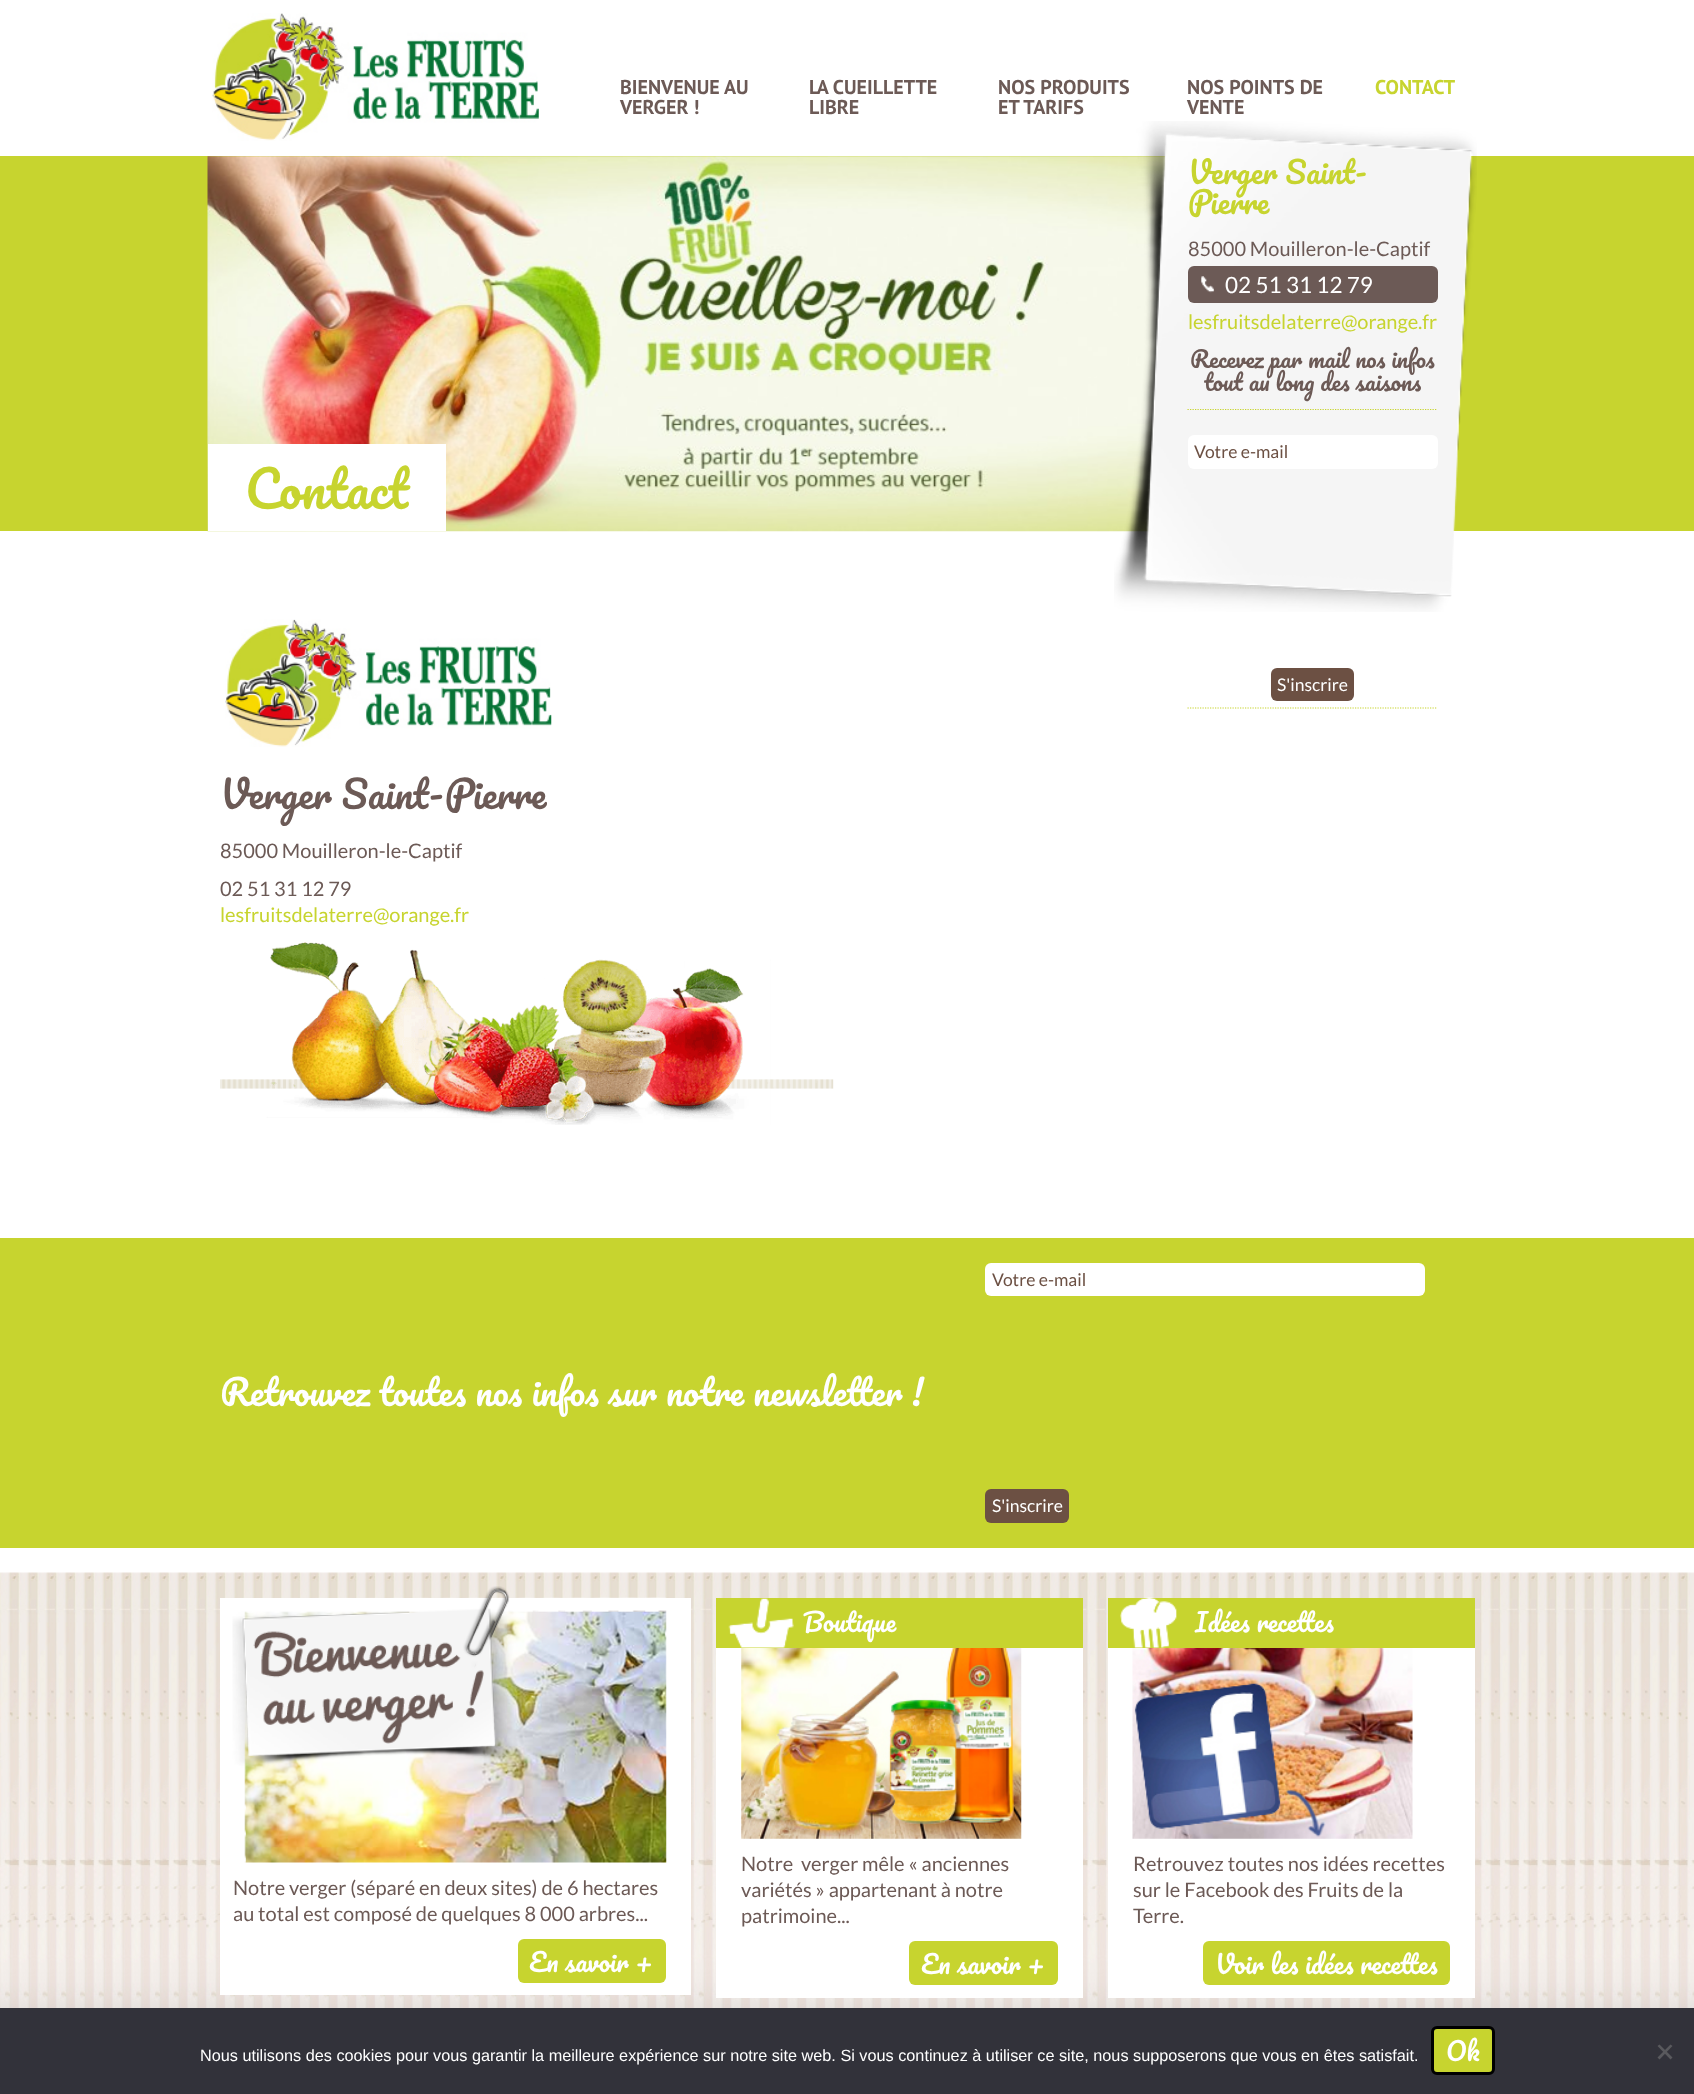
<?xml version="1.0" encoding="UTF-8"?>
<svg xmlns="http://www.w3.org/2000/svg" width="1694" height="2094">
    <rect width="100%" height="100%" fill="#FFFFFF"/>
    <image x="212" y="13" width="327" height="128" href="img_01.png"/>
    <text font-family="PT Sans" font-size="20" font-weight="700" fill="#6C5A56">
        <tspan x="620" y="94">BIENVENUE AU</tspan>
        <tspan x="620" y="114">VERGER !</tspan>
    </text>
    <text font-family="PT Sans" font-size="20" font-weight="700" fill="#6C5A56">
        <tspan x="809" y="94">LA CUEILLETTE</tspan>
        <tspan x="809" y="114">LIBRE</tspan>
    </text>
    <text font-family="PT Sans" font-size="20" font-weight="700" fill="#6C5A56">
        <tspan x="998" y="94">NOS PRODUITS</tspan>
        <tspan x="998" y="114">ET TARIFS</tspan>
    </text>
    <text font-family="PT Sans" font-size="20" font-weight="700" fill="#6C5A56">
        <tspan x="1187" y="94">NOS POINTS DE</tspan>
        <tspan x="1187" y="114">VENTE</tspan>
    </text>
    <text x="1375" y="94" font-family="PT Sans" font-size="20" font-weight="700" fill="#C7D42F">CONTACT</text>
    <rect x="0" y="156" width="1694" height="375" fill="#C7D42F"/>
    <image x="207" y="156" width="959" height="376" href="img_02.png"/>
    <image x="1114" y="121" width="363" height="491" href="img_03.png"/>
    <text font-family="Pacifico" font-size="30" fill="#C7D42F">
        <tspan x="1188" y="184">Verger Saint-</tspan>
        <tspan x="1188" y="214">Pierre</tspan>
    </text>
    <text x="1188" y="256" font-family="Lato" font-size="20" fill="#6C5A56">85000 Mouilleron-le-Captif</text>
    <rect x="1188" y="266" width="250" height="37" rx="6" fill="#6C5A56"/>
    <image x="1201" y="276" width="14" height="17" href="img_04.png"/>
    <text x="1225" y="293" font-family="Lato" font-size="22.5" fill="#FFFFFF">02 51 31 12 79</text>
    <text x="1188" y="329" font-family="Lato" font-size="20" fill="#C7D42F">lesfruitsdelaterre@orange.fr</text>
    <text x="1190" y="368" font-family="Pacifico" font-size="22.5" fill="#6C5A56">Recevez par mail nos infos</text>
    <text x="1204" y="391" font-family="Pacifico" font-size="22.5" fill="#6C5A56">tout au long des saisons</text>
    <path d="M 1187.5 409.5 H 1437.5" fill="none" stroke="#C7D42F" stroke-width="1.2" stroke-dasharray="1.25 1.25"/>
    <path d="M 1187.5 708 H 1437.5" fill="none" stroke="#C7D42F" stroke-width="1.2" stroke-dasharray="1.25 1.25"/>
    <rect x="1188" y="435" width="250" height="34" rx="6" fill="#FFFFFF"/>
    <text x="1194" y="458" font-family="Lato" font-size="17.5" fill="#6C5043">Votre e-mail</text>
    <rect x="1271" y="668" width="83" height="33" rx="6" fill="#6C5043"/>
    <text x="1277" y="691" font-family="Lato" font-size="17.5" fill="#FFFFFF">S'inscrire</text>
    <rect x="208" y="444" width="238" height="87" fill="#FFFFFF"/>
    <text x="245" y="509" font-family="Pacifico" font-size="50" fill="#C7D42F">Contact</text>
    <image x="225" y="619" width="327" height="128" href="img_05.png"/>
    <text x="220" y="809" font-family="Pacifico" font-size="37.5" fill="#6C5A56">Verger Saint-Pierre</text>
    <text font-family="Lato" font-size="20" fill="#6C5A56">
        <tspan x="220" y="858">85000 Mouilleron-le-Captif</tspan>
        <tspan x="220" y="896">02 51 31 12 79</tspan>
    </text>
    <text x="220" y="922" font-family="Lato" font-size="20" fill="#C7D42F">lesfruitsdelaterre@orange.fr</text>
    <image x="220" y="942" width="614" height="183" href="img_06.png"/>
    <rect x="0" y="1238" width="1694" height="310" fill="#C7D42F"/>
    <text x="220" y="1406" font-family="Pacifico" font-size="35" fill="#FFFFFF">Retrouvez toutes nos infos sur notre newsletter !</text>
    <rect x="985" y="1263" width="440" height="33" rx="6" fill="#FFFFFF"/>
    <text x="992" y="1286" font-family="Lato" font-size="17.5" fill="#6C5043">Votre e-mail</text>
    <rect x="985" y="1489" width="84" height="34" rx="6" fill="#6C5043"/>
    <text x="992" y="1512" font-family="Lato" font-size="17.5" fill="#FFFFFF">S'inscrire</text>
    <image x="0" y="1572" width="1694" height="436" href="img_07.png"/>
    <rect x="220" y="1598" width="471" height="397" fill="#FFFFFF"/>
    <image x="232" y="1586" width="435" height="277" href="img_08.png"/>
    <text font-family="Lato" font-size="20" fill="#6C5A56">
        <tspan x="233" y="1895">Notre verger (séparé en deux sites) de 6 hectares</tspan>
        <tspan x="233" y="1921">au total est composé de quelques 8 000 arbres...</tspan>
    </text>
    <rect x="518" y="1939" width="148" height="44" rx="6" fill="#C7D42F"/>
    <text x="529" y="1972" font-family="Pacifico" font-size="25" fill="#FFFFFF">En savoir +</text>
    <rect x="716" y="1648" width="367" height="350" fill="#FFFFFF"/>
    <rect x="716" y="1598" width="367" height="50" fill="#C7D42F"/>
    <image x="728" y="1598" width="66" height="50" href="img_09.png"/>
    <text x="803" y="1632" font-family="Pacifico" font-size="25" fill="#FFFFFF">Boutique</text>
    <image x="741" y="1648" width="281" height="191" href="img_10.png"/>
    <text font-family="Lato" font-size="20" fill="#6C5A56" xml:space="preserve"><tspan x="741" y="1871">Notre  verger mêle « anciennes</tspan><tspan x="741" y="1897">variétés » appartenant à notre</tspan><tspan x="741" y="1923">patrimoine...</tspan></text>
    <rect x="909" y="1941" width="149" height="44" rx="6" fill="#C7D42F"/>
    <text x="921" y="1974" font-family="Pacifico" font-size="25" fill="#FFFFFF">En savoir +</text>
    <rect x="1108" y="1648" width="367" height="350" fill="#FFFFFF"/>
    <rect x="1108" y="1598" width="367" height="50" fill="#C7D42F"/>
    <image x="1120" y="1597" width="57" height="51" href="img_11.png"/>
    <text x="1195" y="1632" font-family="Pacifico" font-size="25" fill="#FFFFFF">Idées recettes</text>
    <image x="1132" y="1648" width="281" height="191" href="img_12.png"/>
    <text font-family="Lato" font-size="20" fill="#6C5A56">
        <tspan x="1133" y="1871">Retrouvez toutes nos idées recettes</tspan>
        <tspan x="1133" y="1897">sur le Facebook des Fruits de la</tspan>
        <tspan x="1133" y="1923">Terre.</tspan>
    </text>
    <rect x="1203" y="1941" width="247" height="44" rx="6" fill="#C7D42F"/>
    <text x="1215" y="1974" font-family="Pacifico" font-size="25" fill="#FFFFFF">Voir les idées recettes</text>
    <rect x="0" y="2008" width="1694" height="86" fill="#32323A"/>
    <text x="200" y="2061" font-family="Liberation Sans" font-size="16.25" fill="#FFFFFF">Nous utilisons des cookies pour vous garantir la meilleure expérience sur notre site web. Si vous continuez à utiliser ce site, nous supposerons que vous en êtes satisfait.</text>
    <rect x="1432.5" y="2027.5" width="61" height="46" rx="4.5" fill="#C7D42F" stroke="#000000" stroke-width="3"/>
    <text x="1446" y="2061" font-family="Pacifico" font-size="25" fill="#FFFFFF">Ok</text>
    <path d="M 1670.5 2044.5 L 1672.5 2046 L 1659.5 2059.5 L 1657.5 2057.5 Z" fill="#59595D"/>
    <path d="M 1657.5 2046 L 1659.5 2044.5 L 1672.5 2057.5 L 1670.5 2059.5 Z" fill="#59595D"/>
</svg>
